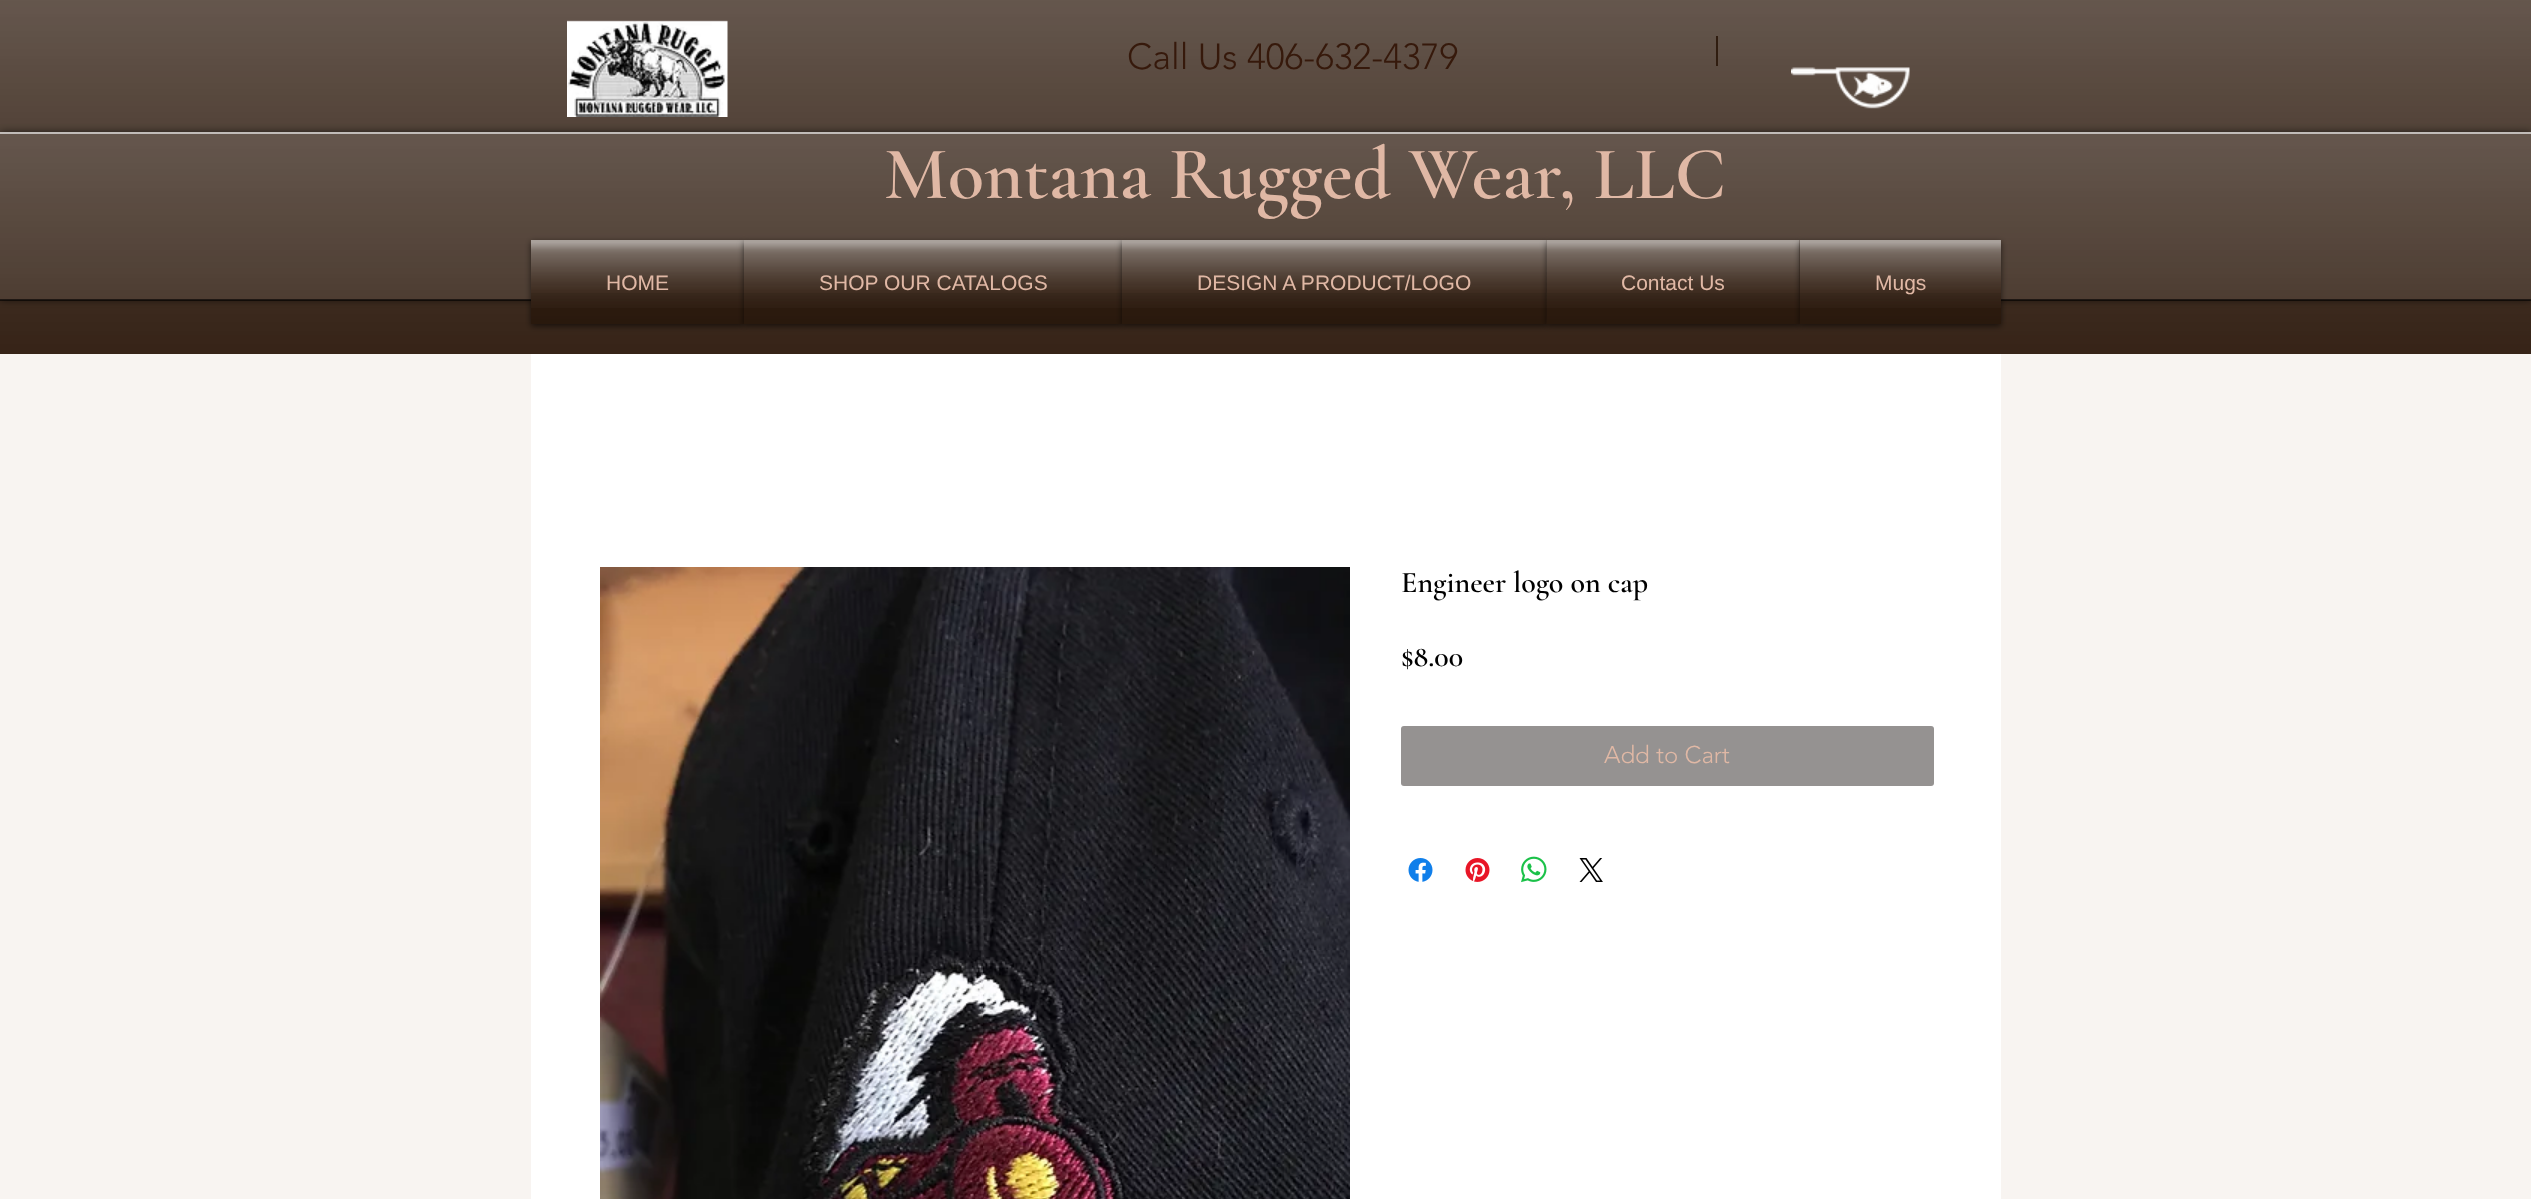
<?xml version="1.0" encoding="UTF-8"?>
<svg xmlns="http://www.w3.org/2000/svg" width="2531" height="1199">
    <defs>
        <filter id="blur1" x="-50%" y="-200%" width="200%" height="500%"><feGaussianBlur stdDeviation="4"/></filter>
        <filter id="blur2" x="-50%" y="-200%" width="200%" height="500%"><feGaussianBlur stdDeviation="3"/></filter>
    </defs>
    <rect width="100%" height="100%" fill="#F8F4F1"/>
    <rect x="0" y="0" width="2531" height="354" fill="#301D10"/>
    <image x="0" y="0" width="2531" height="354" href="img_01.png"/>
    <image x="567" y="20" width="161" height="97" href="img_02.png"/>
    <text x="1127" y="69" font-family="'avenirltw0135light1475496'" font-size="36" font-weight="300" fill="#36190B">Call Us 406-632-4379</text>
    <rect x="1716" y="36" width="2" height="30" fill="#301D10"/>
    <image x="1791" y="67" width="119" height="42" href="img_03.png"/>
    <rect x="0" y="132" width="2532" height="168" fill="#000000" fill-opacity="0.6" filter="url(#blur1)"/>
    <rect x="0" y="134" width="2531" height="166" fill="#301D10"/>
    <image x="0" y="134" width="2531" height="166" href="img_04.png"/>
    <rect x="0" y="299" width="2531" height="2" fill="#000000" fill-opacity="0.6"/>
    <rect x="0" y="132" width="2531" height="2" fill="#C1BCB8"/>
    <text x="884" y="198" font-family="Cormorant Garamond" font-size="75" font-weight="600" fill="#E0B8A5">Montana Rugged Wear, LLC</text>
    <rect x="531" y="242" width="213" height="84" fill="#000000" fill-opacity="0.6" filter="url(#blur2)"/>
    <rect x="531" y="240" width="213" height="84" fill="#301D10"/>
    <image x="531" y="240" width="213" height="68" href="img_05.png"/>
    <image x="531" y="293" width="213" height="31" href="img_06.png"/>
    <text x="606" y="290" font-family="Liberation Sans" font-size="21" fill="#E0B8A5">HOME</text>
    <rect x="744" y="242" width="378" height="84" fill="#000000" fill-opacity="0.6" filter="url(#blur2)"/>
    <rect x="744" y="240" width="378" height="84" fill="#301D10"/>
    <image x="744" y="240" width="378" height="68" href="img_07.png"/>
    <image x="744" y="293" width="378" height="31" href="img_08.png"/>
    <text x="819" y="290" font-family="Liberation Sans" font-size="21" fill="#E0B8A5">SHOP OUR CATALOGS</text>
    <rect x="1122" y="242" width="425" height="84" fill="#000000" fill-opacity="0.6" filter="url(#blur2)"/>
    <rect x="1122" y="240" width="425" height="84" fill="#301D10"/>
    <image x="1122" y="240" width="425" height="68" href="img_09.png"/>
    <image x="1122" y="293" width="424" height="31" href="img_10.png"/>
    <text x="1197" y="290" font-family="Liberation Sans" font-size="21" fill="#E0B8A5">DESIGN A PRODUCT/LOGO</text>
    <rect x="1547" y="242" width="253" height="84" fill="#000000" fill-opacity="0.6" filter="url(#blur2)"/>
    <rect x="1547" y="240" width="253" height="84" fill="#301D10"/>
    <image x="1546" y="240" width="254" height="68" href="img_11.png"/>
    <image x="1547" y="293" width="253" height="31" href="img_12.png"/>
    <text x="1621" y="290" font-family="Liberation Sans" font-size="21" fill="#E0B8A5">Contact Us</text>
    <rect x="1800" y="242" width="201" height="84" fill="#000000" fill-opacity="0.6" filter="url(#blur2)"/>
    <rect x="1800" y="240" width="201" height="84" fill="#301D10"/>
    <image x="1800" y="240" width="201" height="68" href="img_13.png"/>
    <image x="1800" y="293" width="201" height="31" href="img_14.png"/>
    <text x="1875" y="290" font-family="Liberation Sans" font-size="21" fill="#E0B8A5">Mugs</text>
    <rect x="531" y="354" width="1470" height="845" fill="#FFFFFF"/>
    <image x="600" y="567" width="750" height="632" href="img_15.png"/>
    <text x="1401" y="592" font-family="Cormorant Garamond" font-size="30" font-weight="600" fill="#000000">Engineer logo on cap</text>
    <text x="1401" y="666" font-family="Cormorant Garamond" font-size="30" font-weight="600" fill="#000000">$8.00</text>
    <rect x="1401" y="726" width="533" height="60" rx="3" fill="#959291"/>
    <text x="1604" y="763" font-family="'avenirltw0135light1475496'" font-size="24" font-weight="300" fill="#E0B8A5">Add to Cart</text>
    <image x="1408" y="858" width="25" height="24" href="img_16.png"/>
    <image x="1465" y="858" width="25" height="24" href="img_17.png"/>
    <image x="1521" y="856" width="26" height="27" href="img_18.png"/>
    <image x="1579" y="858" width="24" height="24" href="img_19.png"/>
</svg>
